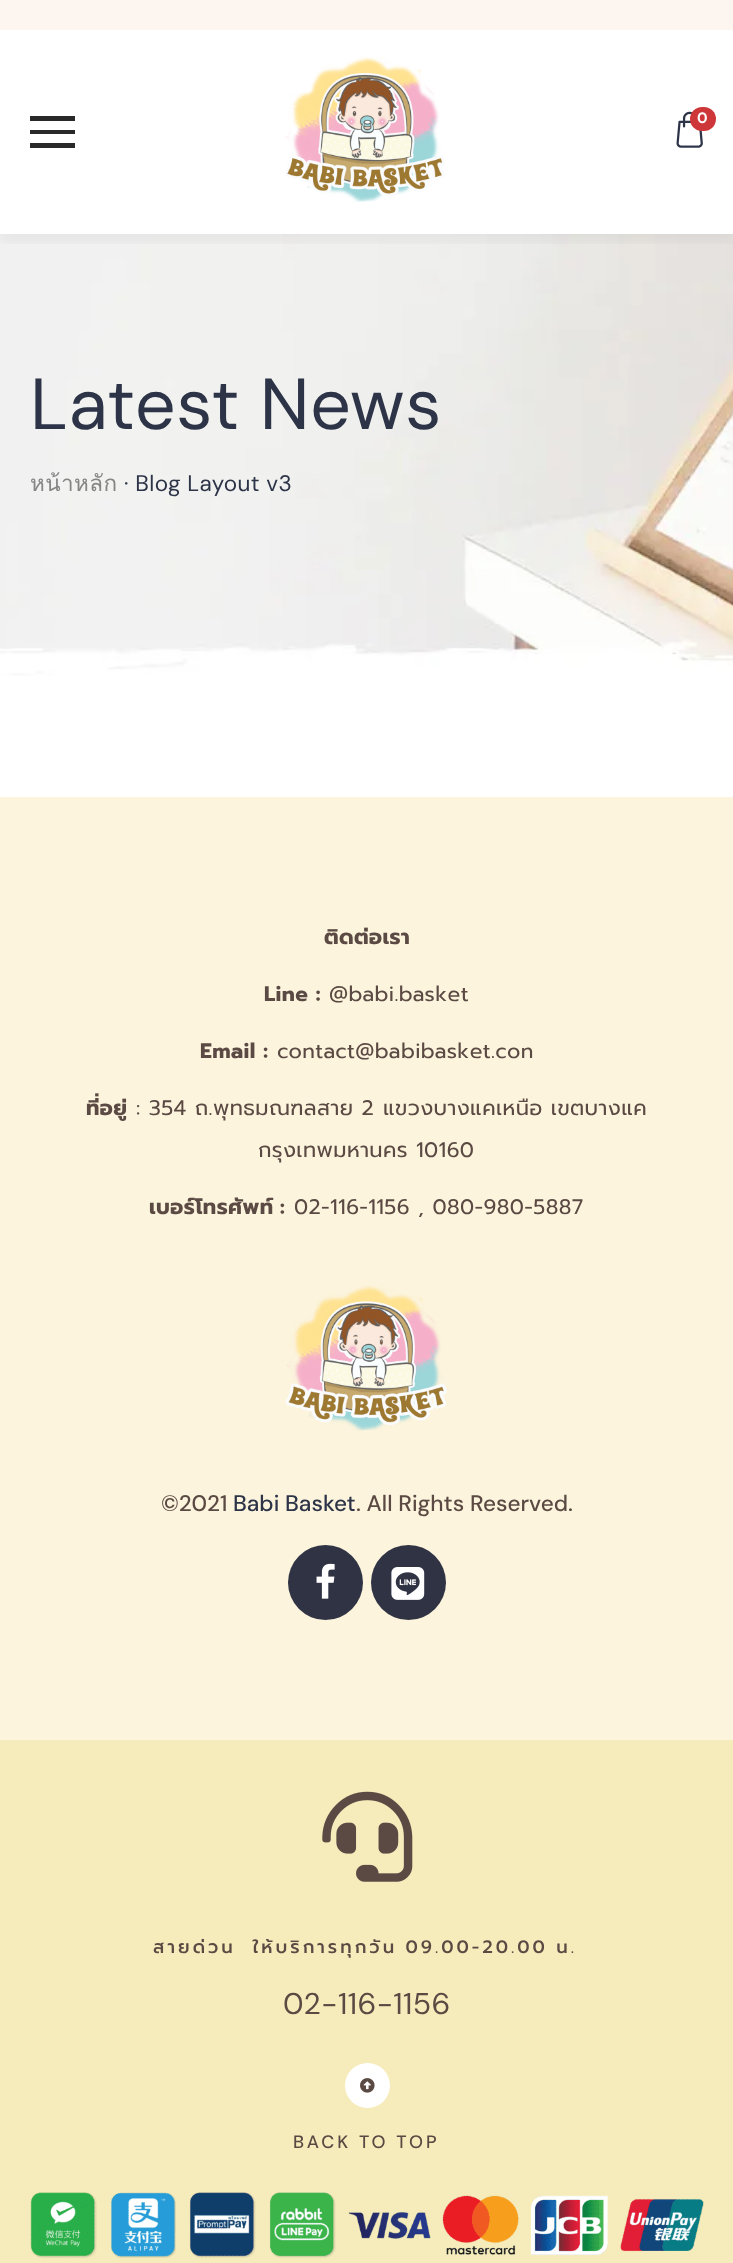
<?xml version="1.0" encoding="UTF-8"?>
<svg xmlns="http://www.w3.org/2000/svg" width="733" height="2263">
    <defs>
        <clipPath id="clip1"><rect x="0" y="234" width="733" height="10"/></clipPath>
        <filter id="blur1" x="-50%" y="-200%" width="200%" height="500%"><feGaussianBlur stdDeviation="7.5"/></filter>
    </defs>
    <rect width="100%" height="100%" fill="#FFFFFF"/>
    <rect x="0" y="0" width="733" height="30" fill="#FDF6F0"/>
    <image x="0" y="234" width="733" height="442" href="img_03.png"/>
    <g clip-path="url(#clip1)">
        <rect x="0" y="38" width="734" height="204" fill="#000000" fill-opacity="0.05" filter="url(#blur1)"/>
    </g>
    <path d="M 30 134 V 130 H 75 V 134 Z M 30 121 V 116 H 75 V 121 Z M 30 148 V 143 H 75 V 148 Z" fill="#292929"/>
    <image x="285" y="56" width="160" height="146" href="img_01.png"/>
    <image x="676" y="111" width="27" height="37" href="img_02.png"/>
    <rect x="690" y="107" width="26" height="24" rx="12" fill="#CE373A"/>
    <text x="697" y="123" font-family="DM Sans" font-size="15" font-weight="700" letter-spacing="0.4" fill="#FFFFFF">0</text>
    <text x="30" y="429" font-family="DM Sans" font-size="72" letter-spacing="0.5" fill="#2D3448">Latest News</text>
    <text x="30" y="491" font-family="Loma" font-size="22.5" letter-spacing="0.4" fill="#858585">หน้าหลัก</text>
    <text x="124" y="491" font-family="DM Sans" font-size="22.5" letter-spacing="0.4" fill="#2D3448">· Blog Layout v3</text>
    <rect x="0" y="797" width="733" height="943" fill="#FCF4DD"/>
    <text x="324" y="944" font-family="Prompt" font-size="21" font-weight="700" letter-spacing="0.4" fill="#5B4A43">ติดต่อเรา</text>
    <text x="264" y="1001" font-family="Prompt" font-size="21" font-weight="700" letter-spacing="0.4" fill="#5B4A43">Line :</text>
    <text x="329" y="1001" font-family="Prompt" font-size="21" letter-spacing="0.4" fill="#5B4A43">@babi.basket</text>
    <text x="200" y="1058" font-family="Prompt" font-size="21" font-weight="700" letter-spacing="0.4" fill="#5B4A43">Email :</text>
    <text x="277" y="1058" font-family="Prompt" font-size="21" letter-spacing="0.4" fill="#5B4A43">contact@babibasket.con</text>
    <text x="86" y="1115" font-family="Prompt" font-size="21" font-weight="700" letter-spacing="0.4" fill="#5B4A43">ที่อยู่</text>
    <text x="136" y="1115" font-family="Prompt" font-size="21" letter-spacing="0.4" fill="#5B4A43">: 354 ถ.พุทธมณฑลสาย 2</text>
    <text x="383" y="1115" font-family="Prompt" font-size="21" letter-spacing="0.4" fill="#5B4A43">แขวงบางแคเหนือ เขตบางแค</text>
    <text x="258" y="1157" font-family="Prompt" font-size="21" letter-spacing="0.4" fill="#5B4A43">กรุงเทพมหานคร 10160</text>
    <text x="149" y="1214" word-spacing="-1" font-family="Prompt" font-size="21" font-weight="700" letter-spacing="0.4" fill="#5B4A43">เบอร์โทรศัพท์ :</text>
    <text x="294" y="1214" font-family="Prompt" font-size="21" letter-spacing="0.4" fill="#5B4A43">02-116-1156 , 080-980-5887</text>
    <image x="285" y="1284" width="162" height="147" href="img_04.png"/>
    <text x="161" y="1511" font-family="DM Sans" font-size="22.5" font-weight="500" fill="#5B4A43">©2021</text>
    <text x="233" y="1511" font-family="DM Sans" font-size="22.5" font-weight="500" fill="#2D3448">Babi Basket</text>
    <text x="356" y="1511" font-family="DM Sans" font-size="22.5" font-weight="500" fill="#5B4A43">. All Rights Reserved.</text>
    <circle cx="325.5" cy="1582.5" r="37.5" fill="#303344"/>
    <image x="316" y="1563" width="19" height="36" href="img_05.png"/>
    <circle cx="408.5" cy="1582.5" r="37.5" fill="#303344"/>
    <image x="391" y="1567" width="34" height="33" href="img_06.png"/>
    <rect x="0" y="1740" width="733" height="523" fill="#F6ECBB"/>
    <image x="322" y="1791" width="91" height="91" href="img_07.png"/>
    <text x="153" y="1953" word-spacing="-1" font-family="Prompt" font-size="18" font-weight="500" letter-spacing="3" fill="#5B4A43" xml:space="preserve">สายด่วน  ให้บริการทุกวัน 09.00-20.00 น.</text>
    <text x="283" y="2014" font-family="DM Sans" font-size="30" letter-spacing="0.4" fill="#5B4A43">02-116-1156</text>
    <circle cx="367.5" cy="2085.5" r="22.5" fill="#FFFFFF"/>
    <image x="360" y="2078" width="15" height="15" href="img_08.png"/>
    <text x="293" y="2148" font-family="DM Sans" font-size="18" font-weight="500" letter-spacing="3" fill="#5B4A43">BACK TO TOP</text>
    <image x="30" y="2192" width="674" height="66" href="img_09.png"/>
</svg>
